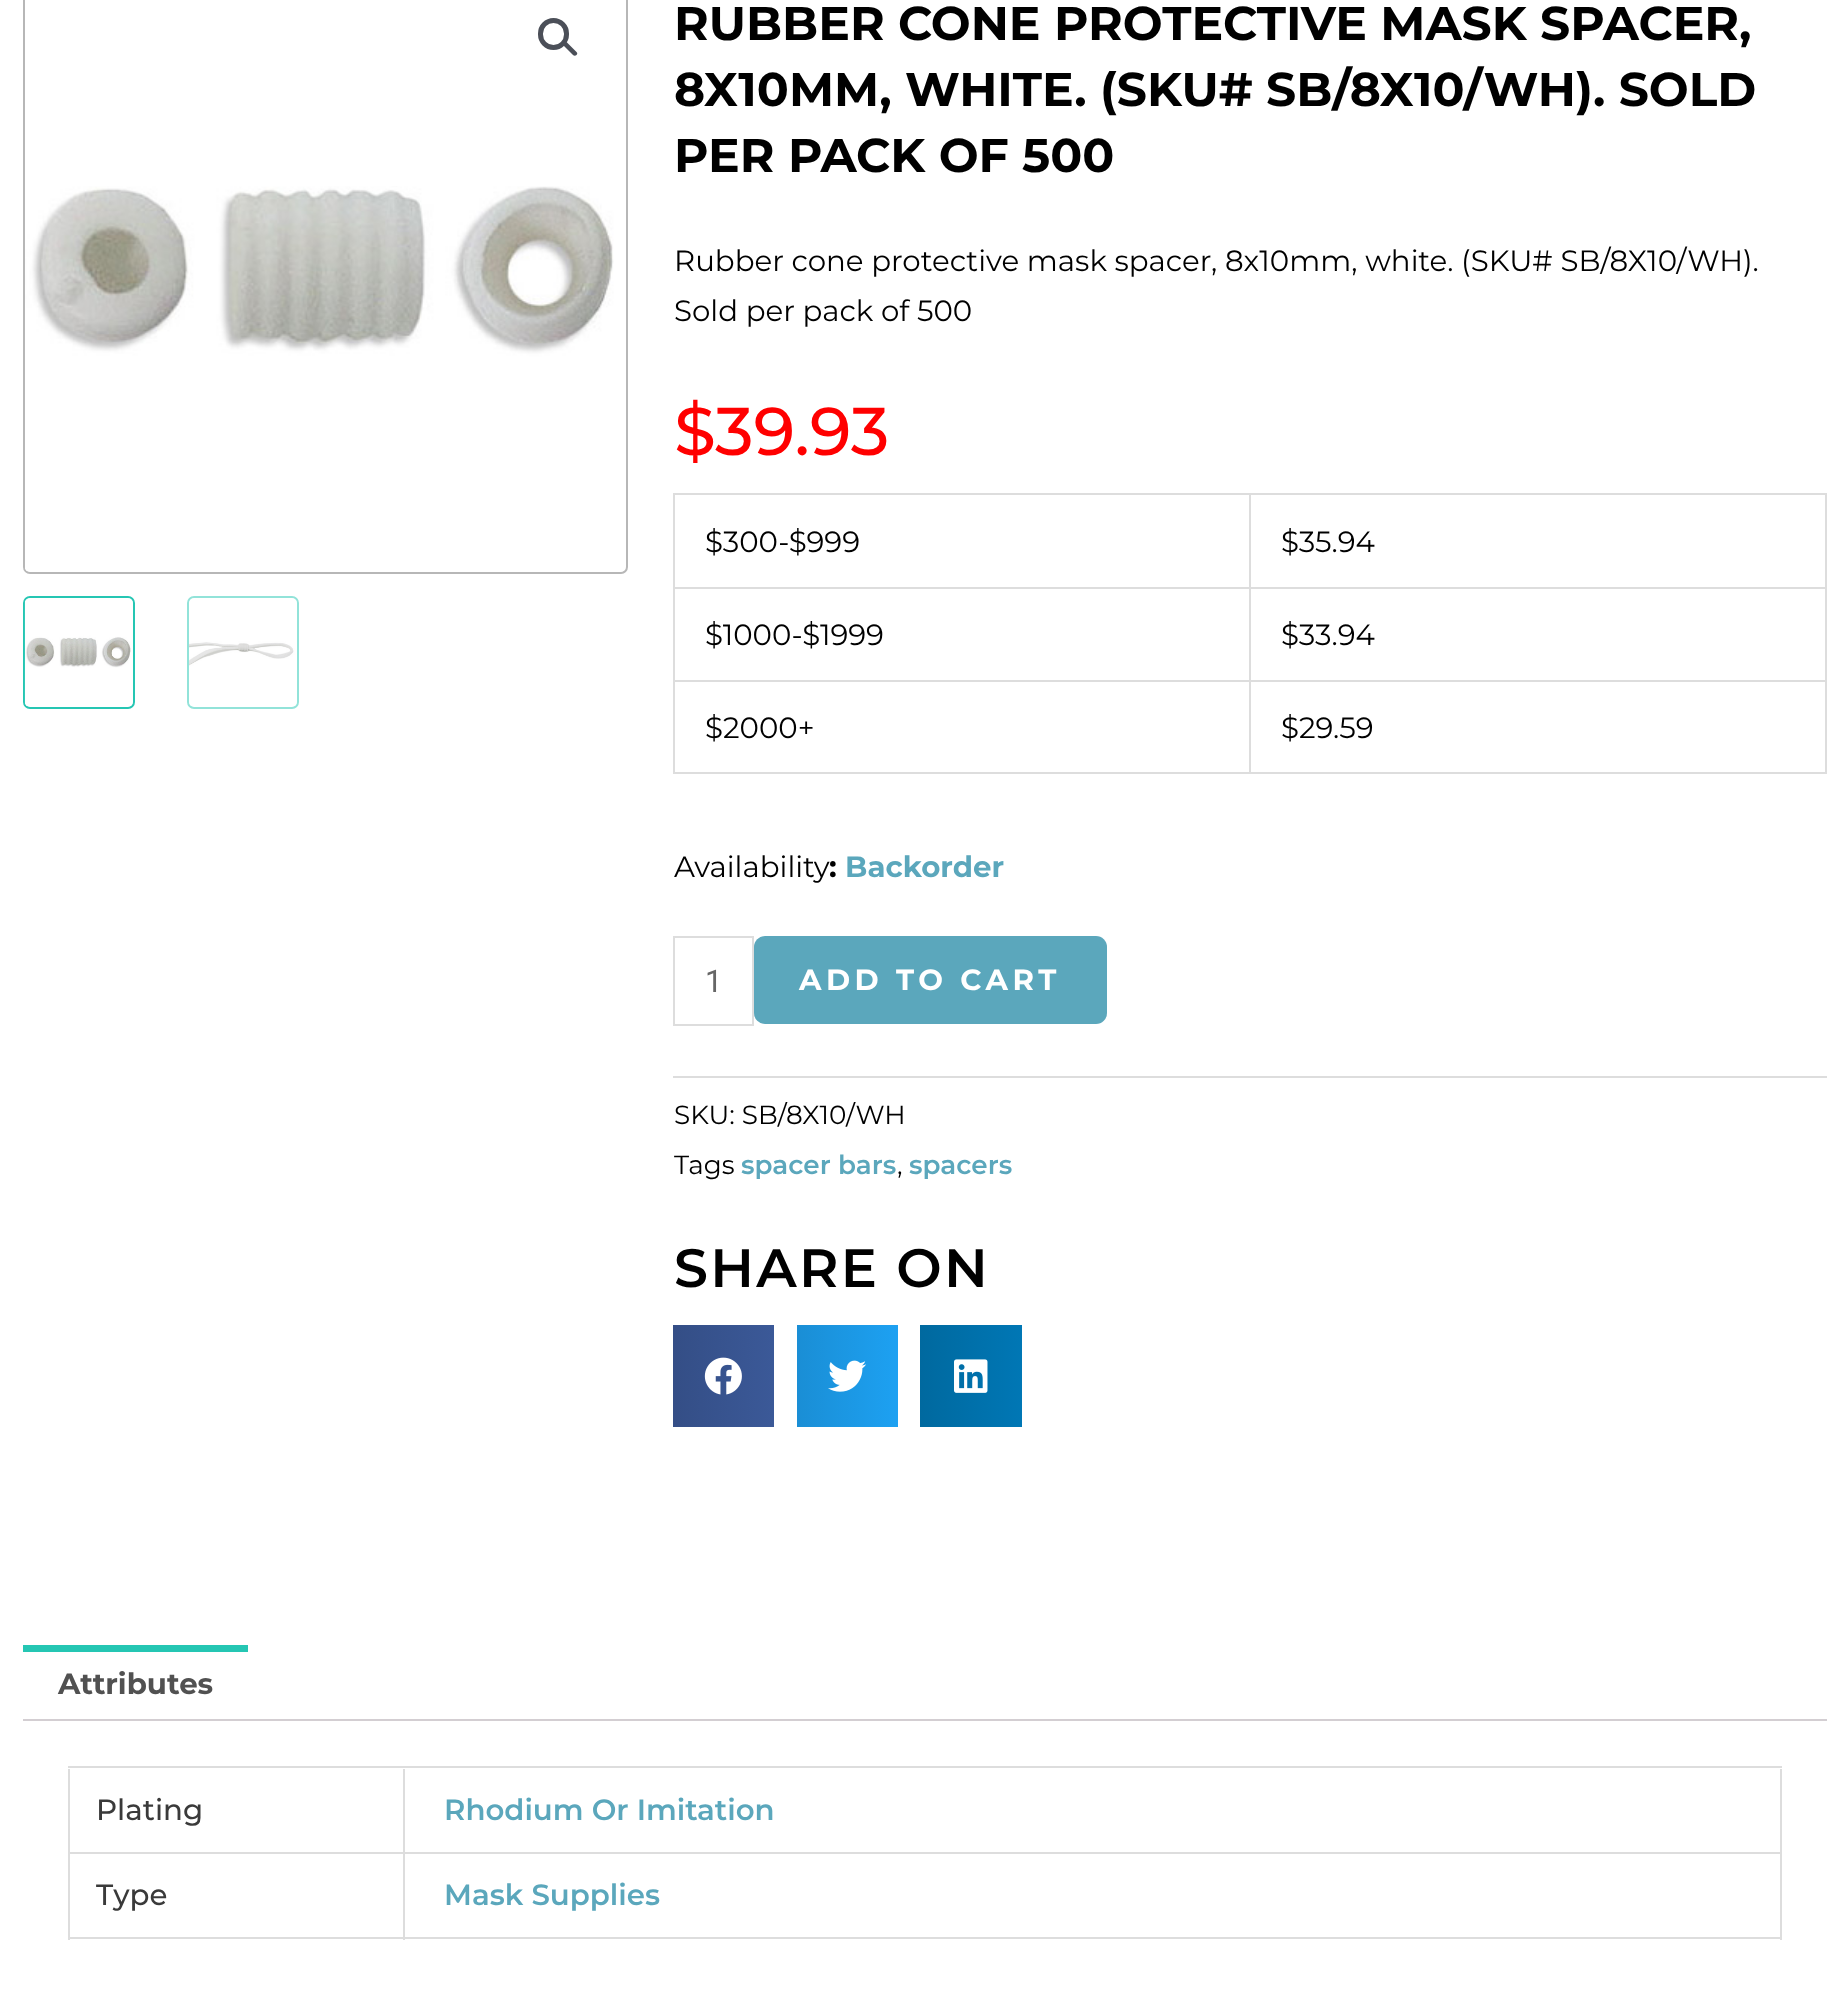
<?xml version="1.0" encoding="UTF-8"?>
<svg xmlns="http://www.w3.org/2000/svg" width="1848" height="2000">
    <defs>
        <linearGradient id="g1" gradientUnits="userSpaceOnUse" x1="673" y1="1376" x2="774" y2="1376"><stop offset="0" stop-color="#344E86"/><stop offset="1" stop-color="#3B5998"/></linearGradient>
        <linearGradient id="g2" gradientUnits="userSpaceOnUse" x1="797" y1="1376" x2="898" y2="1376"><stop offset="0" stop-color="#1A8ED5"/><stop offset="1" stop-color="#1DA1F2"/></linearGradient>
        <linearGradient id="g3" gradientUnits="userSpaceOnUse" x1="920" y1="1376" x2="1022" y2="1376"><stop offset="0" stop-color="#00699F"/><stop offset="1" stop-color="#0077B5"/></linearGradient>
    </defs>
    <rect width="100%" height="100%" fill="#FFFFFF"/>
    <rect x="24" y="-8" width="603" height="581" rx="6" fill="none" stroke="#B7B7B7" stroke-width="2"/>
    <image x="25" y="186" width="598" height="386" href="img_01.png"/>
    <rect x="540.5" y="20.5" width="26" height="27" rx="13" fill="none" stroke="#4B4F58" stroke-width="5"/>
    <path d="M 563.5 42.5 C 564.5 41.5 566 41.5 567 42.5 L 576.5 52 C 577.5 53 577.5 54 576.5 55 C 575.5 56 574 56 573 55 L 563.5 45.5 C 563 44.5 563 43 563.5 42.5 Z" fill="#4B4F58"/>
    <rect x="24" y="597" width="110" height="111" rx="6" fill="none" stroke="#25C6B3" stroke-width="2"/>
    <image x="24" y="598" width="109" height="109" href="img_02.png"/>
    <rect x="188" y="597" width="110" height="111" rx="6" fill="none" stroke="#92E3D9" stroke-width="2"/>
    <image x="189" y="599" width="108" height="107" href="img_03.png"/>
    <text font-family="Montserrat" font-size="47.25" font-weight="700" fill="#000000">
        <tspan x="674" y="40">RUBBER CONE PROTECTIVE MASK SPACER,</tspan>
        <tspan x="674" y="106">8X10MM, WHITE. (SKU# SB/8X10/WH). SOLD</tspan>
        <tspan x="674" y="172">PER PACK OF 500</tspan>
    </text>
    <text font-family="Montserrat" font-size="29.25" fill="#000000">
        <tspan x="674" y="271">Rubber cone protective mask spacer, 8x10mm, white. (SKU# SB/8X10/WH).</tspan>
        <tspan x="674" y="321">Sold per pack of 500</tspan>
    </text>
    <text x="674" y="455" font-family="Montserrat" font-size="67.5" font-weight="500" fill="#FF0000">$</text>
    <text x="715" y="455" font-family="Montserrat" font-size="67.5" font-weight="500" fill="#FF0000">39.93</text>
    <rect x="673" y="493" width="1154" height="2" fill="#DDDDDD"/>
    <rect x="673" y="493" width="2" height="281" fill="#DDDDDD"/>
    <rect x="1249" y="495" width="2" height="279" fill="#DDDDDD"/>
    <rect x="675" y="587" width="576" height="2" fill="#DDDDDD"/>
    <text x="705" y="552" font-family="Montserrat" font-size="29.25" fill="#000000">$300-$999</text>
    <rect x="1825" y="495" width="2" height="279" fill="#DDDDDD"/>
    <rect x="1251" y="587" width="576" height="2" fill="#DDDDDD"/>
    <text x="1281" y="552" font-family="Montserrat" font-size="29.25" fill="#000000">$35.94</text>
    <rect x="675" y="680" width="1152" height="2" fill="#DDDDDD"/>
    <text x="705" y="645" font-family="Montserrat" font-size="29.25" fill="#000000">$1000-$1999</text>
    <text x="1281" y="645" font-family="Montserrat" font-size="29.25" fill="#000000">$33.94</text>
    <rect x="675" y="772" width="1152" height="2" fill="#DDDDDD"/>
    <text x="705" y="738" font-family="Montserrat" font-size="29.25" fill="#000000">$2000+</text>
    <text x="1281" y="738" font-family="Montserrat" font-size="29.25" fill="#000000">$29.59</text>
    <text x="674" y="877" font-family="Montserrat" font-size="29.25" fill="#000000">Availability</text>
    <text x="829" y="877" font-family="Montserrat" font-size="29.25" font-weight="700" fill="#000000">:</text>
    <text x="845" y="877" font-family="Montserrat" font-size="29.25" font-weight="700" fill="#5BA7BC">Backorder</text>
    <rect x="674" y="937" width="79" height="88" fill="none" stroke="#DDDDDD" stroke-width="2"/>
    <text x="705" y="992" font-family="Roboto" font-size="31" fill="#666666">1</text>
    <rect x="754" y="936" width="353" height="88" rx="11" fill="#5BA7BC"/>
    <text x="799" y="990" font-family="Montserrat" font-size="29.25" font-weight="700" letter-spacing="4.5" fill="#FFFFFF">ADD TO CART</text>
    <rect x="673" y="1076" width="1154" height="2" fill="#DDDDDD"/>
    <text font-family="Montserrat" font-size="26.25" fill="#000000">
        <tspan x="674" y="1124">SKU: SB/8X10/WH</tspan>
        <tspan x="674" y="1174">Tags</tspan>
    </text>
    <text x="741" y="1174" font-family="Montserrat" font-size="26.25" font-weight="600" fill="#5BA7BC">spacer bars</text>
    <text x="897" y="1174" font-family="Montserrat" font-size="26.25" fill="#000000">,</text>
    <text x="909" y="1174" font-family="Montserrat" font-size="26.25" font-weight="600" fill="#5BA7BC">spacers</text>
    <text x="674" y="1287" font-family="Montserrat" font-size="54" font-weight="600" letter-spacing="2.25" fill="#000000">SHARE ON</text>
    <rect x="673" y="1325" width="101" height="102" fill="url(#g1)"/>
    <image x="704" y="1357" width="38" height="38" href="img_04.png"/>
    <rect x="797" y="1325" width="101" height="102" fill="url(#g2)"/>
    <image x="828" y="1360" width="39" height="32" href="img_05.png"/>
    <rect x="920" y="1325" width="102" height="102" fill="url(#g3)"/>
    <image x="954" y="1359" width="34" height="34" href="img_06.png"/>
    <rect x="23" y="1645" width="225" height="7" fill="#25C6B3"/>
    <text x="58" y="1694" font-family="Montserrat" font-size="29.25" font-weight="700" fill="#515151">Attributes</text>
    <rect x="23" y="1719" width="1804" height="2" fill="#D3CED2"/>
    <rect x="68" y="1766" width="1714" height="2" fill="#DDDDDD"/>
    <rect x="403" y="1769" width="2" height="171" fill="#DDDDDD"/>
    <rect x="68" y="1852" width="337" height="2" fill="#DDDDDD"/>
    <rect x="68" y="1769" width="2" height="85" fill="#DDDDDD"/>
    <text x="96" y="1820" font-family="Montserrat" font-size="29.25" font-weight="500" fill="#3A3A3A">Plating</text>
    <rect x="1780" y="1769" width="2" height="171" fill="#DDDDDD"/>
    <rect x="405" y="1852" width="1377" height="2" fill="#DDDDDD"/>
    <text x="444" y="1820" font-family="Montserrat" font-size="29.25" font-weight="600" fill="#5BA7BC">Rhodium Or Imitation</text>
    <rect x="68" y="1937" width="1714" height="2" fill="#DDDDDD"/>
    <rect x="68" y="1854" width="2" height="86" fill="#DDDDDD"/>
    <text x="96" y="1905" font-family="Montserrat" font-size="29.25" font-weight="500" fill="#3A3A3A">Type</text>
    <text x="444" y="1905" font-family="Montserrat" font-size="29.25" font-weight="600" fill="#5BA7BC">Mask Supplies</text>
</svg>
